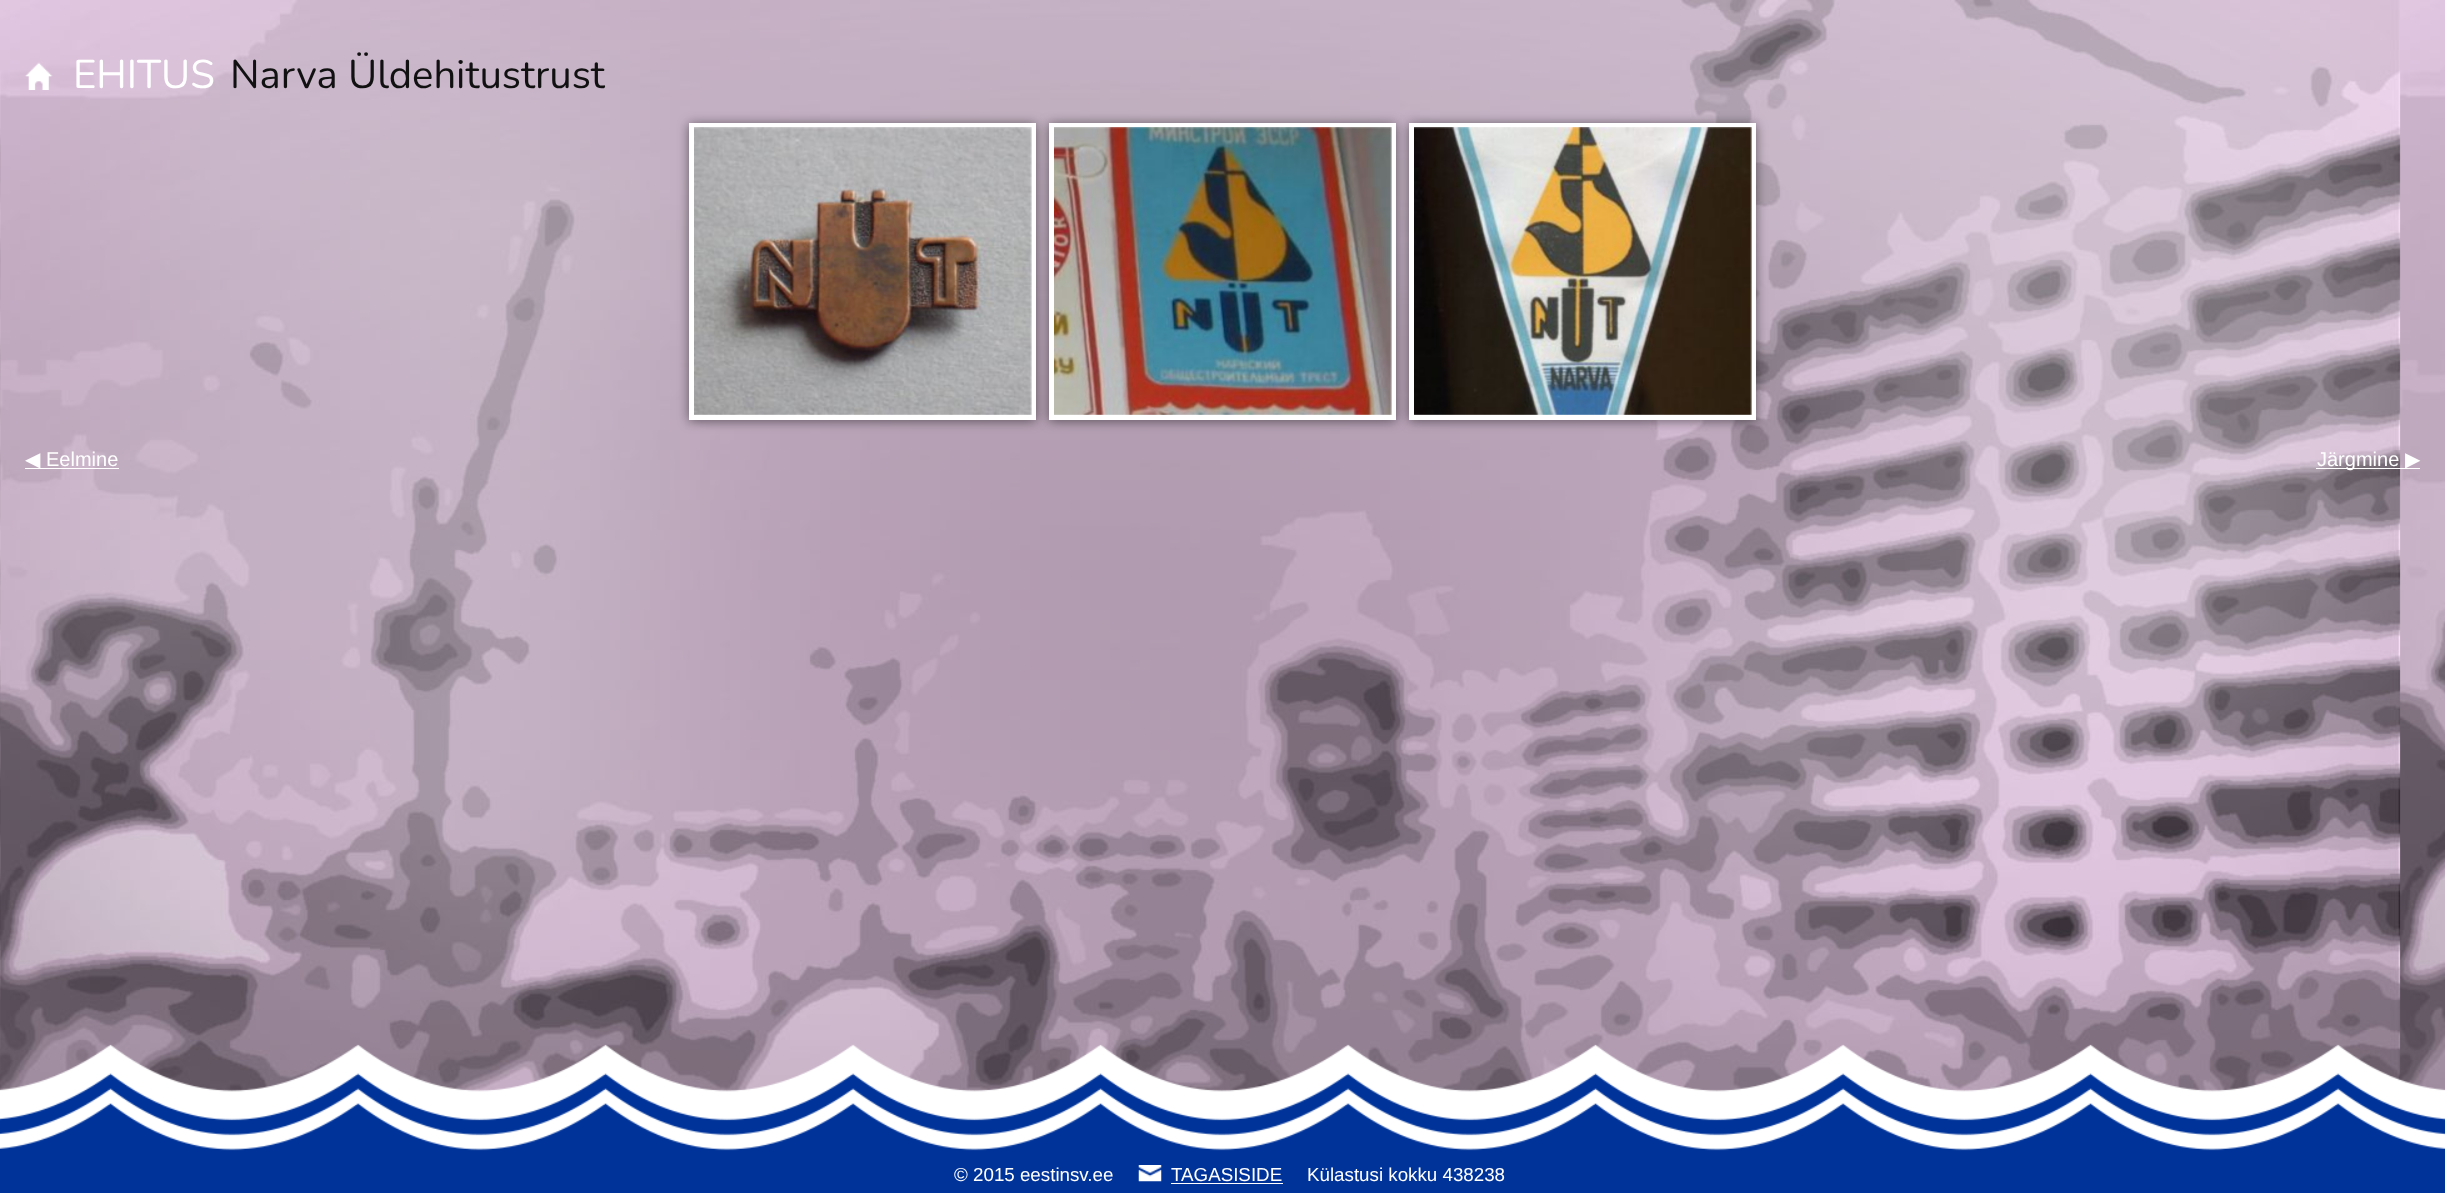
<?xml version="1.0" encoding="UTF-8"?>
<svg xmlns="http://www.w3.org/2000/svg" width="2445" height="1193">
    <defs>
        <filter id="blur1" x="-50%" y="-200%" width="200%" height="500%"><feGaussianBlur stdDeviation="6"/></filter>
    </defs>
    <rect width="100%" height="100%" fill="#FFFFFF"/>
    <image x="0" y="0" width="2445" height="1092" href="img_01.png"/>
    <image x="25" y="62" width="28" height="28" href="img_02.png"/>
    <text x="73" y="88" font-family="Nunito" font-size="40" font-weight="200" fill="#FFFFFF">EHITUS</text>
    <text x="230" y="88" font-family="Nunito" font-size="40" font-weight="200" fill="#111111">Narva Üldehitustrust</text>
    <rect x="689" y="124" width="347" height="297" fill="#000000" fill-opacity="0.5" filter="url(#blur1)"/>
    <rect x="689" y="123" width="347" height="297" fill="#FFFFFF"/>
    <image x="694" y="127" width="338" height="288" href="img_03.png"/>
    <rect x="1049" y="124" width="347" height="297" fill="#000000" fill-opacity="0.5" filter="url(#blur1)"/>
    <rect x="1049" y="123" width="347" height="297" fill="#FFFFFF"/>
    <image x="1054" y="127" width="338" height="288" href="img_04.png"/>
    <rect x="1409" y="124" width="347" height="297" fill="#000000" fill-opacity="0.5" filter="url(#blur1)"/>
    <rect x="1409" y="123" width="347" height="297" fill="#FFFFFF"/>
    <image x="1414" y="127" width="338" height="288" href="img_05.png"/>
    <rect x="25" y="468" width="94" height="1" fill="#FFFFFF"/>
    <text x="25" y="466" font-family="DejaVu Sans" font-size="20" fill="#FFFFFF">◀</text>
    <text x="46" y="466" font-family="Liberation Sans" font-size="20" fill="#FFFFFF">Eelmine</text>
    <rect x="2316" y="468" width="104" height="1" fill="#FFFFFF"/>
    <text x="2317" y="466" font-family="Liberation Sans" font-size="20" fill="#FFFFFF">Järgmine</text>
    <text x="2405" y="466" font-family="DejaVu Sans" font-size="20" fill="#FFFFFF">▶</text>
    <image x="0" y="1044" width="2445" height="149" href="img_06.png"/>
    <text x="954" y="1181" font-family="Liberation Sans" font-size="18.75" fill="#FFFFFF">© 2015 eestinsv.ee</text>
    <image x="1138" y="1165" width="24" height="17" href="img_07.png"/>
    <text x="1171" y="1181" font-family="Liberation Sans" font-size="18.75" fill="#FFFFFF">TAGASISIDE</text>
    <rect x="1171" y="1183" width="112" height="1" fill="#FFFFFF"/>
    <text x="1307" y="1181" font-family="Liberation Sans" font-size="18.75" fill="#FFFFFF">Külastusi kokku 438238</text>
</svg>
